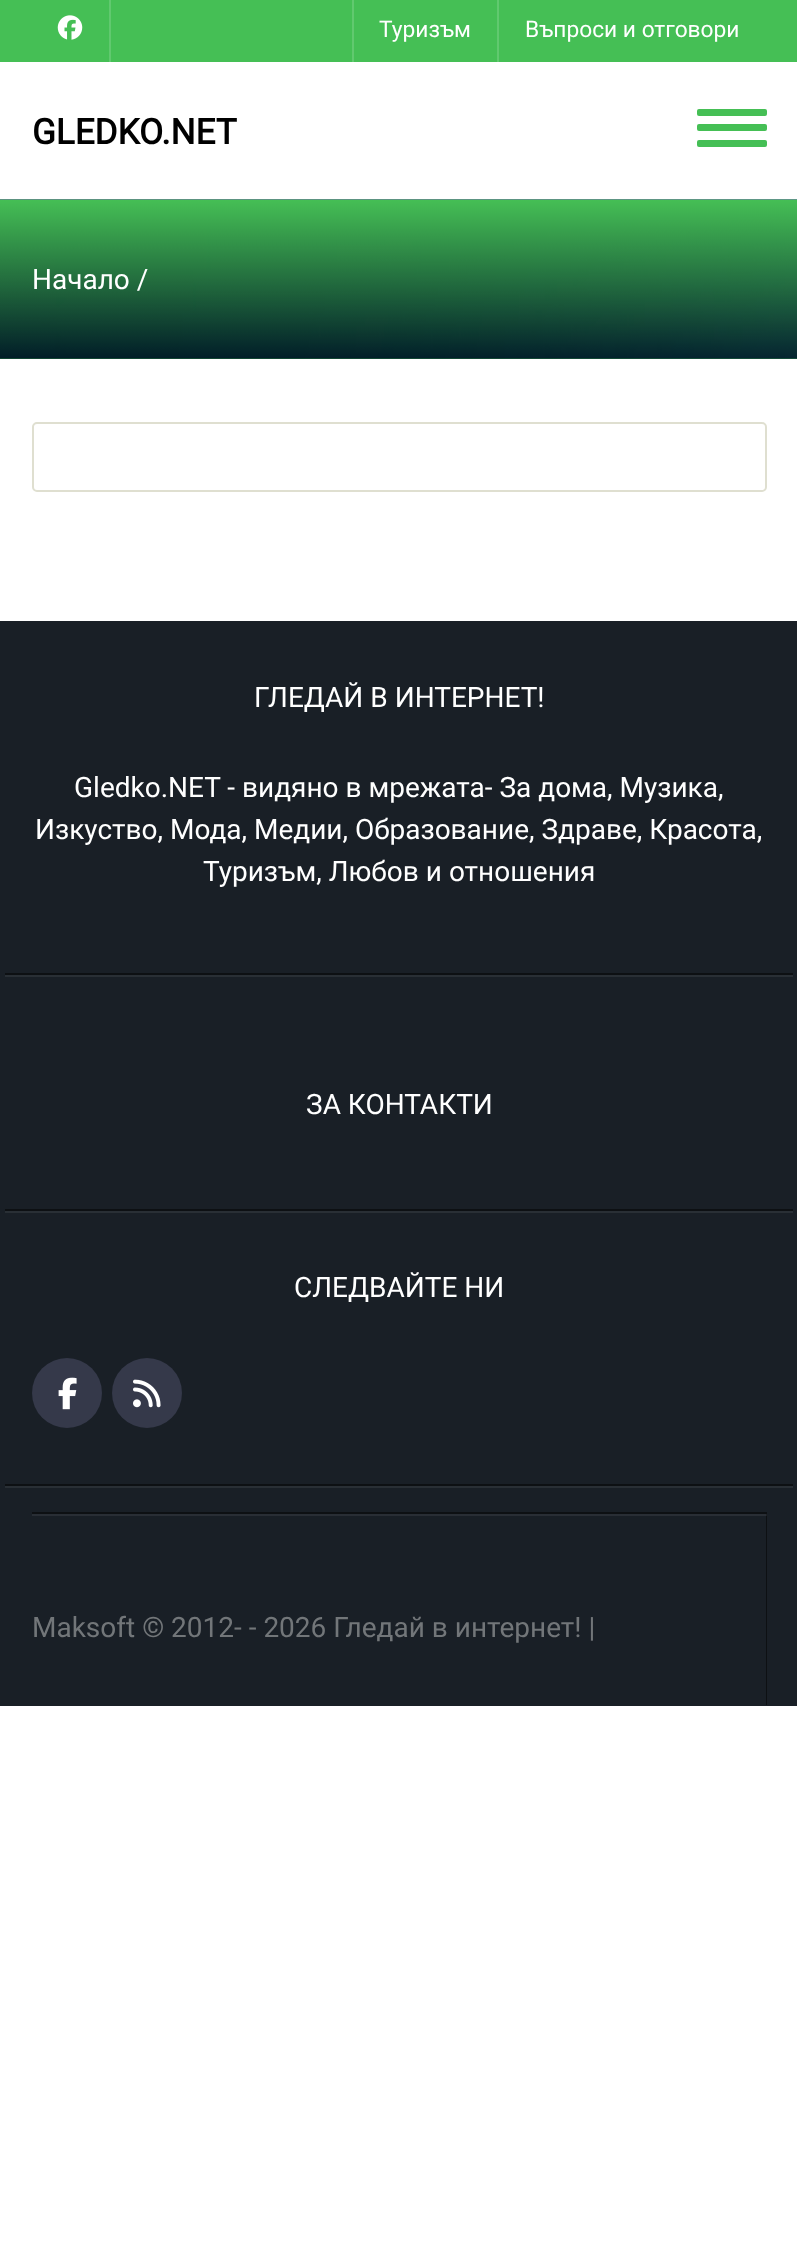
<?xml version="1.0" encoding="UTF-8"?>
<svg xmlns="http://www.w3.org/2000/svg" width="797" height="2252">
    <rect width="100%" height="100%" fill="#FFFFFF"/>
    <rect x="0" y="0" width="797" height="62" fill="#45BF55"/>
    <image x="57" y="15" width="26" height="25" href="img_01.png"/>
    <text x="379" y="37" font-family="Roboto" font-size="22.75" fill="#FFFFFF">Туризъм</text>
    <text x="525" y="37" font-family="Roboto" font-size="22.75" fill="#FFFFFF">Въпроси и отговори</text>
    <rect x="497" y="0" width="2" height="62" fill="#61C96F"/>
    <rect x="352" y="0" width="2" height="62" fill="#61C96F"/>
    <rect x="109" y="0" width="2" height="62" fill="#61C96F"/>
    <text x="32" y="144" font-family="Roboto" font-size="35" font-weight="700" fill="#000000">GLEDKO.NET</text>
    <rect x="697" y="109" width="70" height="7" rx="2" fill="#45BF55"/>
    <rect x="697" y="124" width="70" height="7" rx="2" fill="#45BF55"/>
    <rect x="697" y="140" width="70" height="7" rx="2" fill="#45BF55"/>
    <image x="0" y="199" width="797" height="160" href="img_02.png"/>
    <text x="32" y="289" font-family="Roboto" font-size="28" fill="#FFFFFF">Начало /</text>
    <rect x="33" y="423" width="733" height="68" rx="4" fill="none" stroke="#DFDFD0" stroke-width="2"/>
    <rect x="0" y="621" width="797" height="1085" fill="#191F26"/>
    <path d="M 5 623 V 977 H 793 V 623 V 975 H 5 Z" fill="#292F35"/>
    <rect x="5" y="973" width="788" height="2" fill="#0D1013"/>
    <text x="254" y="707" font-family="Roboto" font-size="28" fill="#FFFFFF">ГЛЕДАЙ В ИНТЕРНЕТ!</text>
    <text x="74" y="797" font-family="Roboto" font-size="28" fill="#FFFFFF">Gledko.NET - видяно в мрежата- За дома, Музика,</text>
    <text x="35" y="839" font-family="Roboto" font-size="28" fill="#FFFFFF">Изкуство, Мода, Медии, Образование, Здраве, Красота,</text>
    <text x="203" y="881" font-family="Roboto" font-size="28" fill="#FFFFFF">Туризъм, Любов и отношения</text>
    <path d="M 5 1029 V 1213 H 793 V 1029 V 1211 H 5 Z" fill="#292F35"/>
    <rect x="5" y="1209" width="788" height="2" fill="#0D1013"/>
    <text x="306" y="1114" font-family="Roboto" font-size="28" fill="#FFFFFF">ЗА КОНТАКТИ</text>
    <path d="M 5 1213 V 1488 H 793 V 1213 V 1486 H 5 Z" fill="#292F35"/>
    <rect x="5" y="1484" width="788" height="2" fill="#0D1013"/>
    <text x="294" y="1297" font-family="Roboto" font-size="28" fill="#FFFFFF">СЛЕДВАЙТЕ НИ</text>
    <circle cx="67" cy="1393" r="35" fill="#35394A"/>
    <image x="58" y="1377" width="19" height="33" href="img_03.png"/>
    <circle cx="147" cy="1393" r="35" fill="#35394A"/>
    <image x="133" y="1379" width="28" height="29" href="img_04.png"/>
    <path d="M 32 1512 V 1514 H 766 V 1705 H 767 V 1512 Z" fill="#0D1013"/>
    <rect x="32" y="1514" width="735" height="2" fill="#FFFFFF" fill-opacity="0.07"/>
    <text x="32" y="1637" font-family="Roboto" font-size="28" fill="#727679">Maksoft © 2012- - 2026 Гледай в интернет! |</text>
</svg>
